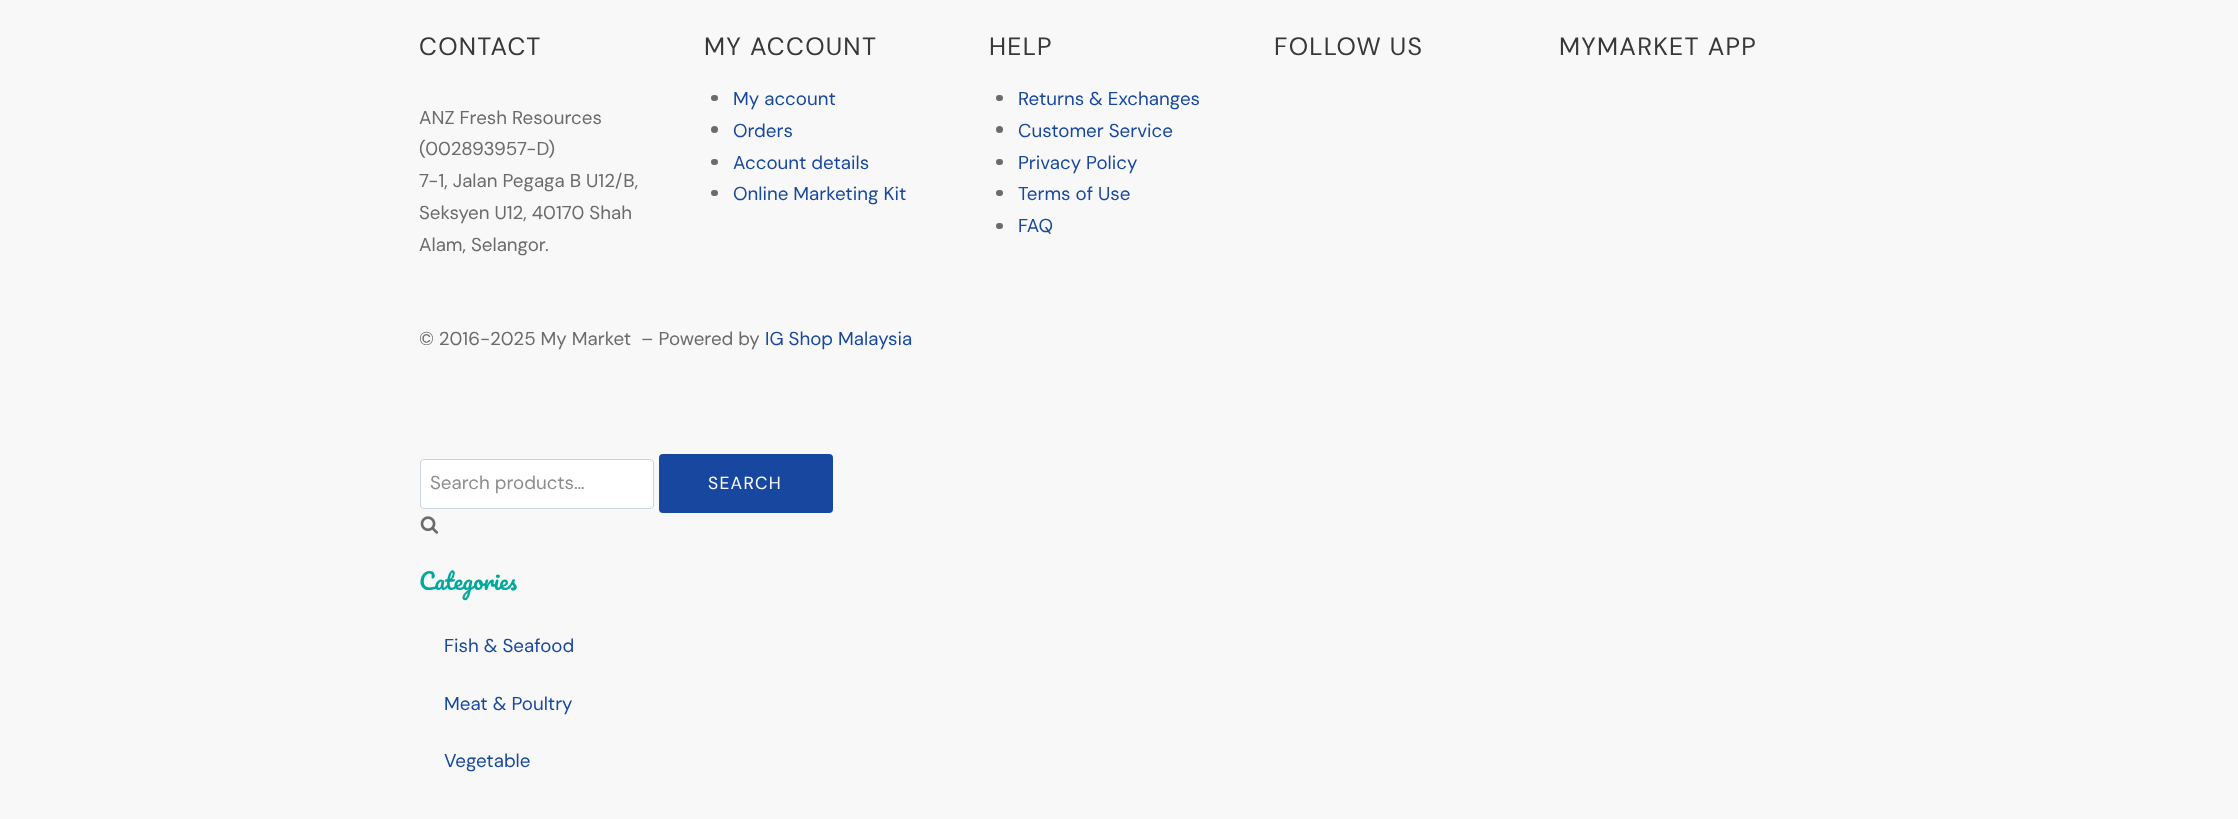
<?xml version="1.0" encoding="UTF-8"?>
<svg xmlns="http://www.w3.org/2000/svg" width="2238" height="819">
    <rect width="100%" height="100%" fill="#F8F8F8"/>
    <text x="419" y="55" font-family="DM Sans" font-size="25" letter-spacing="1.25" fill="#383838">CONTACT</text>
    <text font-family="DM Sans" font-size="18.75" fill="#6B6B6B">
        <tspan x="419" y="124">ANZ Fresh Resources</tspan>
        <tspan x="419" y="155">(002893957-D)</tspan>
        <tspan x="419" y="187">7-1, Jalan Pegaga B U12/B,</tspan>
        <tspan x="419" y="219">Seksyen U12, 40170 Shah</tspan>
        <tspan x="419" y="251">Alam, Selangor.</tspan>
    </text>
    <text x="704" y="55" font-family="DM Sans" font-size="25" letter-spacing="1.25" fill="#383838">MY ACCOUNT</text>
    <rect x="711" y="95" width="7" height="6" rx="3" fill="#6B6B6B"/>
    <text x="733" y="105" font-family="DM Sans" font-size="18.75" fill="#17479E">My account</text>
    <circle cx="714.5" cy="129.5" r="3.5" fill="#6B6B6B"/>
    <text x="733" y="137" font-family="DM Sans" font-size="18.75" fill="#17479E">Orders</text>
    <rect x="711" y="159" width="7" height="6" rx="3" fill="#6B6B6B"/>
    <text x="733" y="169" font-family="DM Sans" font-size="18.75" fill="#17479E">Account details</text>
    <rect x="711" y="190" width="7" height="6" rx="3" fill="#6B6B6B"/>
    <text x="733" y="200" font-family="DM Sans" font-size="18.75" fill="#17479E">Online Marketing Kit</text>
    <text x="989" y="55" font-family="DM Sans" font-size="25" letter-spacing="1.25" fill="#383838">HELP</text>
    <rect x="996" y="95" width="7" height="6" rx="3" fill="#6B6B6B"/>
    <text x="1018" y="105" font-family="DM Sans" font-size="18.75" fill="#17479E">Returns &amp; Exchanges</text>
    <circle cx="999.5" cy="129.5" r="3.5" fill="#6B6B6B"/>
    <text x="1018" y="137" font-family="DM Sans" font-size="18.75" fill="#17479E">Customer Service</text>
    <rect x="996" y="159" width="7" height="6" rx="3" fill="#6B6B6B"/>
    <text x="1018" y="169" font-family="DM Sans" font-size="18.75" fill="#17479E">Privacy Policy</text>
    <rect x="996" y="190" width="7" height="6" rx="3" fill="#6B6B6B"/>
    <text x="1018" y="200" font-family="DM Sans" font-size="18.75" fill="#17479E">Terms of Use</text>
    <rect x="996" y="223" width="7" height="6" rx="3" fill="#6B6B6B"/>
    <text x="1018" y="232" font-family="DM Sans" font-size="18.75" fill="#17479E">FAQ</text>
    <text x="1274" y="55" font-family="DM Sans" font-size="25" letter-spacing="1.25" fill="#383838">FOLLOW US</text>
    <text x="1559" y="55" font-family="DM Sans" font-size="25" letter-spacing="1.25" fill="#383838">MYMARKET APP</text>
    <text x="419" y="345" font-family="DM Sans" font-size="18.75" fill="#6B6B6B" xml:space="preserve">© 2016-2025 My Market  – Powered by</text>
    <text x="765" y="345" font-family="DM Sans" font-size="18.75" fill="#17479E">IG Shop Malaysia</text>
    <rect x="420.5" y="459.5" width="233" height="49" rx="3.5" fill="#FFFFFF" stroke="#CBD5E0"/>
    <text x="430" y="489" font-family="DM Sans" font-size="18.75" fill="#8D8D8D">Search products…</text>
    <rect x="659" y="454" width="174" height="59" rx="4" fill="#17479E"/>
    <text x="708" y="489" font-family="DM Sans" font-size="17.5" letter-spacing="1.25" fill="#FFFFFF">SEARCH</text>
    <image x="420" y="516" width="19" height="18" href="img_01.png"/>
    <text x="419" y="590" font-family="Pacifico" font-size="22.5" fill="#00A99C">Categories</text>
    <text x="444" y="652" font-family="DM Sans" font-size="18.75" fill="#17479E">Fish &amp; Seafood</text>
    <text x="444" y="710" font-family="DM Sans" font-size="18.75" fill="#17479E">Meat &amp; Poultry</text>
    <text x="444" y="767" font-family="DM Sans" font-size="18.75" fill="#17479E">Vegetable</text>
</svg>
